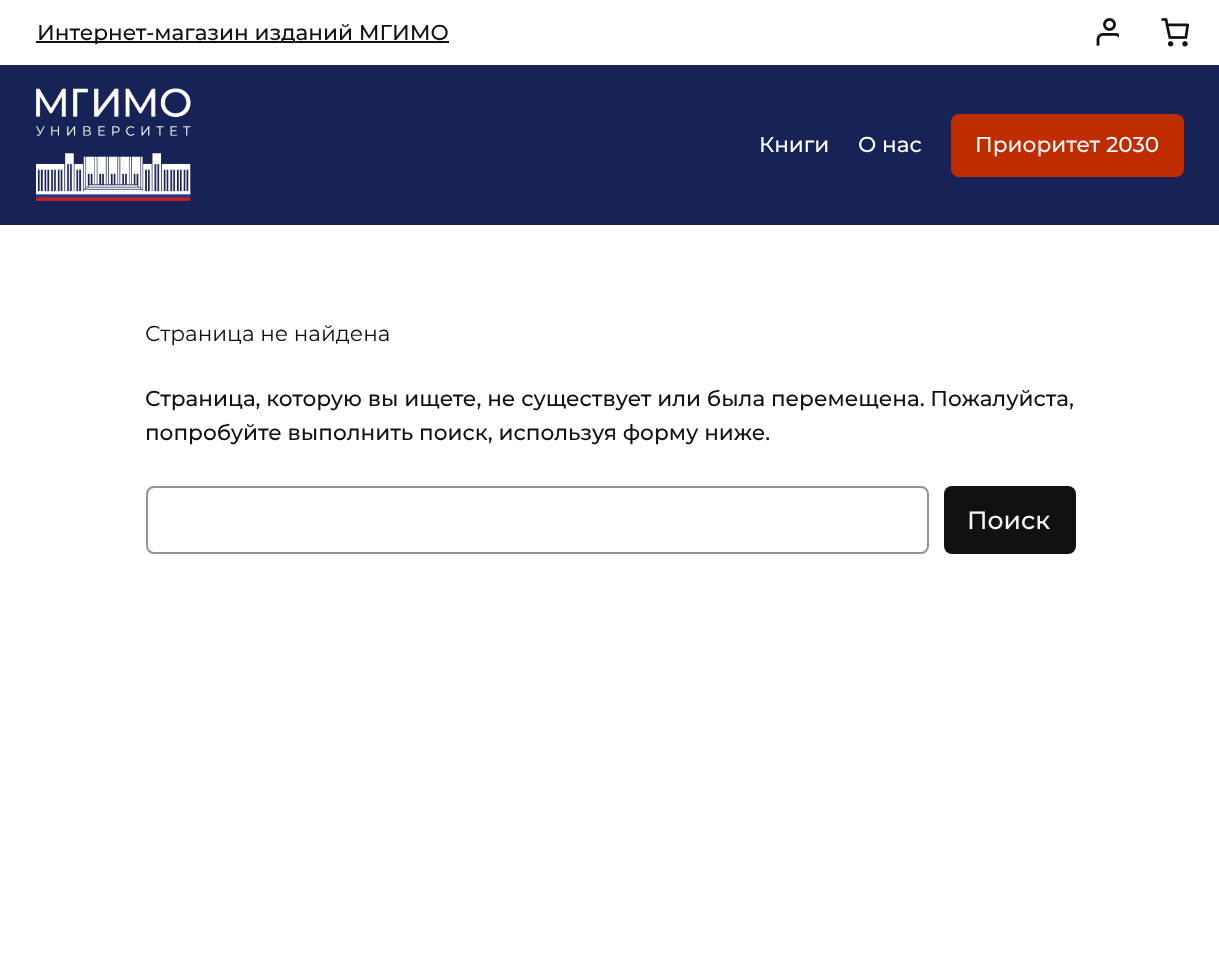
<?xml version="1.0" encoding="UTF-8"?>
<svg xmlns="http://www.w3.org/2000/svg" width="1219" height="960">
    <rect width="100%" height="100%" fill="#FFFFFF"/>
    <rect x="36" y="41" width="413" height="2" fill="#111111"/>
    <text x="37" y="40" font-family="Montserrat" font-size="21.6" font-weight="500" fill="#111111">Интернет-магазин изданий МГИМО</text>
    <image x="1096" y="18" width="23" height="28" href="img_01.png"/>
    <image x="1161" y="18" width="28" height="29" href="img_02.png"/>
    <rect x="0" y="65" width="1219" height="160" fill="#172256"/>
    <image x="36" y="88" width="155" height="113" href="img_03.png"/>
    <text x="759" y="152" font-family="Montserrat" font-size="21.6" font-weight="500" fill="#FFFFFF">Книги</text>
    <text x="858" y="152" font-family="Montserrat" font-size="21.6" font-weight="500" fill="#FFFFFF">О нас</text>
    <rect x="951" y="114" width="233" height="63" rx="8" fill="#BE2C00"/>
    <text x="975" y="152" font-family="Montserrat" font-size="21.6" font-weight="500" fill="#F9F9F9">Приоритет 2030</text>
    <text x="145" y="341" font-family="Montserrat" font-size="21.6" fill="#111111">Страница не найдена</text>
    <text font-family="Montserrat" font-size="21.6" font-weight="500" fill="#111111">
        <tspan x="145" y="406">Страница, которую вы ищете, не существует или была перемещена. Пожалуйста,</tspan>
        <tspan x="145" y="440">попробуйте выполнить поиск, используя форму ниже.</tspan>
    </text>
    <rect x="147" y="487" width="781" height="66" rx="7" fill="none" stroke="#949494" stroke-width="2"/>
    <rect x="944" y="486" width="132" height="68" rx="8" fill="#111111"/>
    <text x="967" y="529" font-family="Montserrat" font-size="25" font-weight="500" fill="#F9F9F9">Поиск</text>
</svg>
